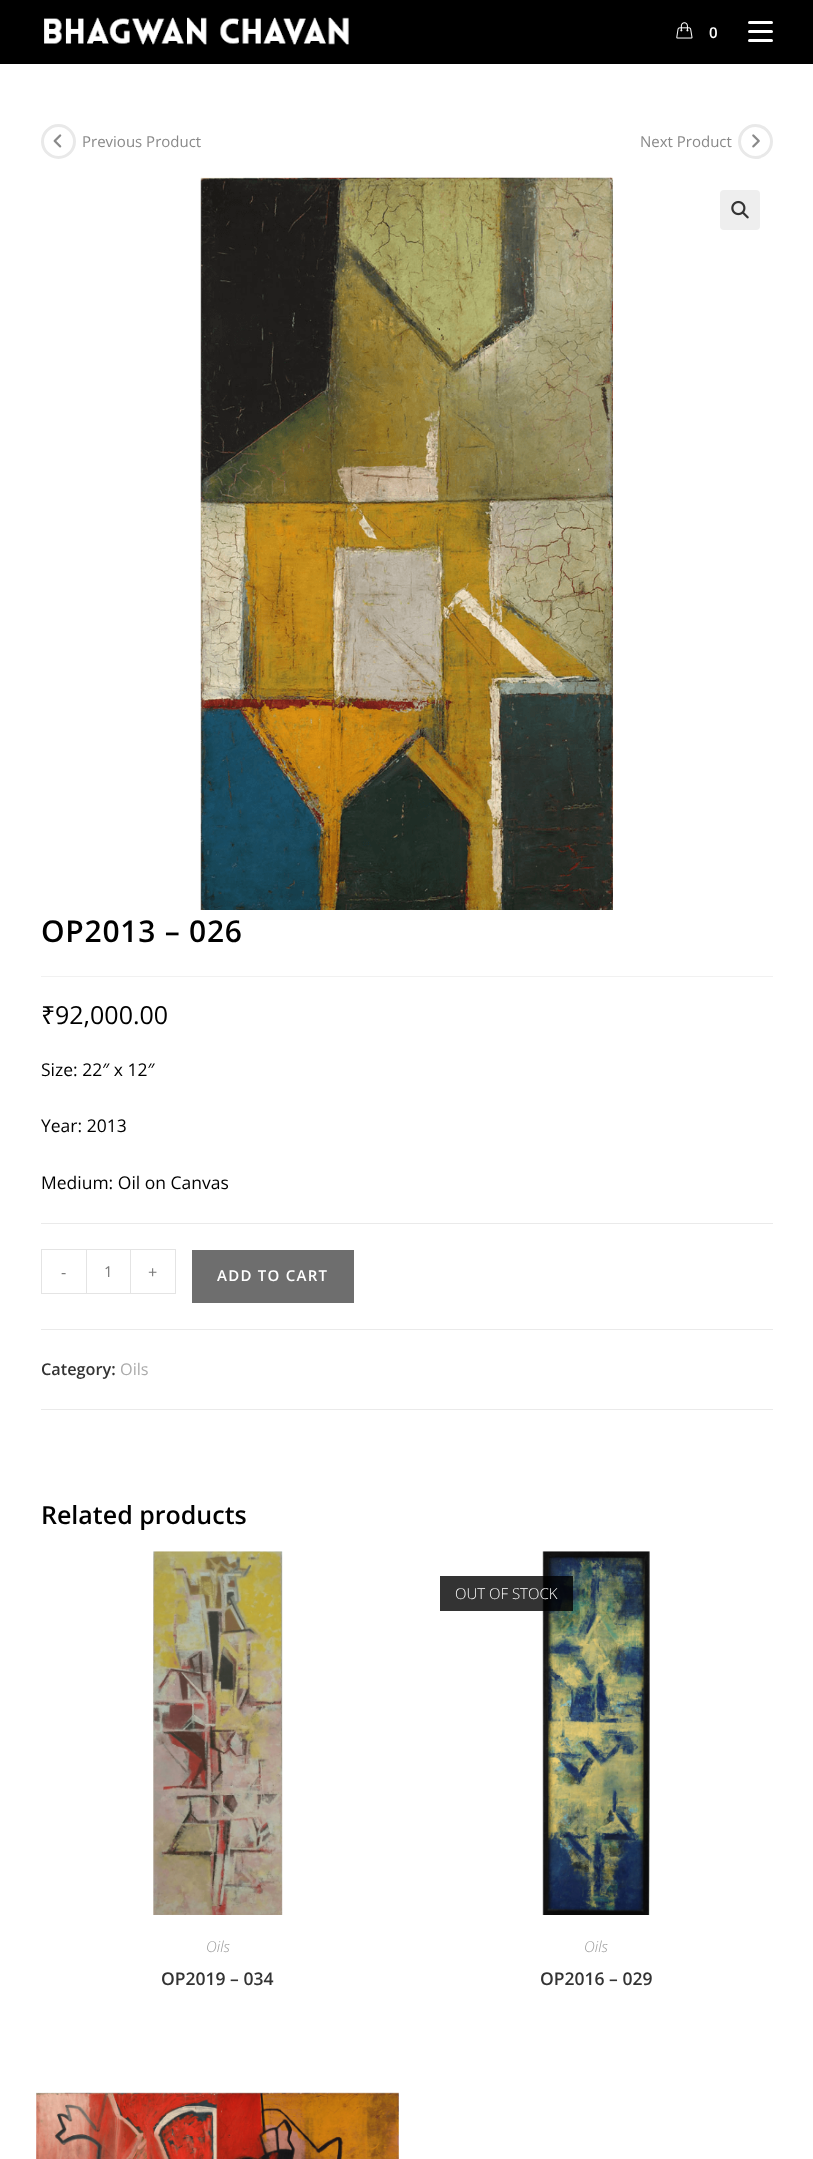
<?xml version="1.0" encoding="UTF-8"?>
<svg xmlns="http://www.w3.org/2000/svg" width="813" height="2159">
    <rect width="100%" height="100%" fill="#FFFFFF"/>
    <rect x="0" y="0" width="813" height="64" fill="#000000"/>
    <image x="44" y="17" width="305" height="28" href="img_01.png"/>
    <image x="676" y="22" width="17" height="17" href="img_02.png"/>
    <text x="709" y="38" font-family="Open Sans" font-size="15" font-weight="600" letter-spacing="0.75" fill="#FFFFFF">0</text>
    <rect x="748" y="21" width="25" height="3" rx="1.5" fill="#FFFFFF"/>
    <rect x="748" y="30" width="25" height="3" rx="1.5" fill="#FFFFFF"/>
    <rect x="748" y="39" width="25" height="3" rx="1.5" fill="#FFFFFF"/>
    <circle cx="58.5" cy="141.5" r="16" fill="none" stroke="#E9E9E9" stroke-width="3"/>
    <image x="53" y="134" width="9" height="14" href="img_03.png"/>
    <text x="82" y="147" font-family="Open Sans" font-size="15" fill="#898989">Previous Product</text>
    <text x="640" y="147" font-family="Open Sans" font-size="15" fill="#898989">Next Product</text>
    <circle cx="755.5" cy="141.5" r="16" fill="none" stroke="#E9E9E9" stroke-width="3"/>
    <image x="752" y="134" width="8" height="14" href="img_04.png"/>
    <image x="200" y="177" width="413" height="733" href="img_05.png"/>
    <rect x="720" y="190" width="40" height="40" rx="4" fill="#EEEEEE"/>
    <image x="731" y="200" width="18" height="19" href="img_06.png"/>
    <rect x="41" y="976" width="732" height="1" fill="#F1F1F1"/>
    <text x="41" y="942" font-family="Open Sans" font-size="30" font-weight="600" letter-spacing="0.75" fill="#000000">OP2013 – 026</text>
    <text x="41" y="1024" font-family="Noto Sans" font-size="25" fill="#000000">₹</text>
    <text x="55" y="1024" font-family="Open Sans" font-size="25" fill="#000000">92,000.00</text>
    <text x="41" y="1076" font-family="Open Sans" font-size="17.5" fill="#000000">Size: 22″ x 12″</text>
    <text x="41" y="1132" font-family="Open Sans" font-size="17.5" fill="#000000">Year: 2013</text>
    <text x="41" y="1189" font-family="Open Sans" font-size="17.5" fill="#000000">Medium: Oil on Canvas</text>
    <rect x="41" y="1223" width="732" height="1" fill="#EAEAEA"/>
    <rect x="41" y="1329" width="732" height="1" fill="#EAEAEA"/>
    <rect x="41" y="1249" width="45" height="1" fill="#E4E4E4"/>
    <rect x="41" y="1293" width="45" height="1" fill="#E4E4E4"/>
    <rect x="41" y="1249" width="1" height="45" fill="#E4E4E4"/>
    <text x="61" y="1278" font-family="Open Sans" font-size="16.25" fill="#777777">-</text>
    <rect x="86.5" y="1249.5" width="44" height="44" fill="none" stroke="#E4E4E4"/>
    <text x="104" y="1277" font-family="Open Sans" font-size="15" fill="#777777">1</text>
    <rect x="131" y="1249" width="45" height="1" fill="#E4E4E4"/>
    <rect x="175" y="1249" width="1" height="45" fill="#E4E4E4"/>
    <rect x="131" y="1293" width="45" height="1" fill="#E4E4E4"/>
    <text x="148" y="1278" font-family="Open Sans" font-size="16.25" fill="#777777">+</text>
    <rect x="192" y="1250" width="162" height="53" fill="#6E6E6E"/>
    <text x="217" y="1281" font-family="Open Sans" font-size="15" font-weight="600" letter-spacing="1.25" fill="#FFFFFF">ADD TO CART</text>
    <rect x="41" y="1409" width="732" height="1" fill="#EAEAEA"/>
    <text x="41" y="1375" font-family="Open Sans" font-size="16.25" font-weight="600" fill="#333333">Category:</text>
    <text x="120" y="1375" font-family="Open Sans" font-size="16.25" fill="#ABABAB">Oils</text>
    <text x="41" y="1524" font-family="Open Sans" font-size="25" font-weight="600" fill="#000000">Related products</text>
    <image x="153" y="1551" width="130" height="364" href="img_07.png"/>
    <text x="206" y="1952" font-family="Open Sans" font-size="15" font-weight="300" font-style="italic" fill="#999999">Oils</text>
    <text x="161" y="1985" font-family="Open Sans" font-size="17.5" font-weight="600" fill="#333333">OP2019 – 034</text>
    <image x="542" y="1551" width="108" height="364" href="img_08.png"/>
    <rect x="440" y="1576" width="133" height="35" fill="#000000" fill-opacity="0.8"/>
    <text x="455" y="1599" font-family="Open Sans" font-size="15" font-weight="300" fill="#FFFFFF">OUT OF STOCK</text>
    <text x="584" y="1952" font-family="Open Sans" font-size="15" font-weight="300" font-style="italic" fill="#999999">Oils</text>
    <text x="540" y="1985" font-family="Open Sans" font-size="17.5" font-weight="600" fill="#333333">OP2016 – 029</text>
    <image x="36" y="2092" width="363" height="67" href="img_09.png"/>
</svg>
